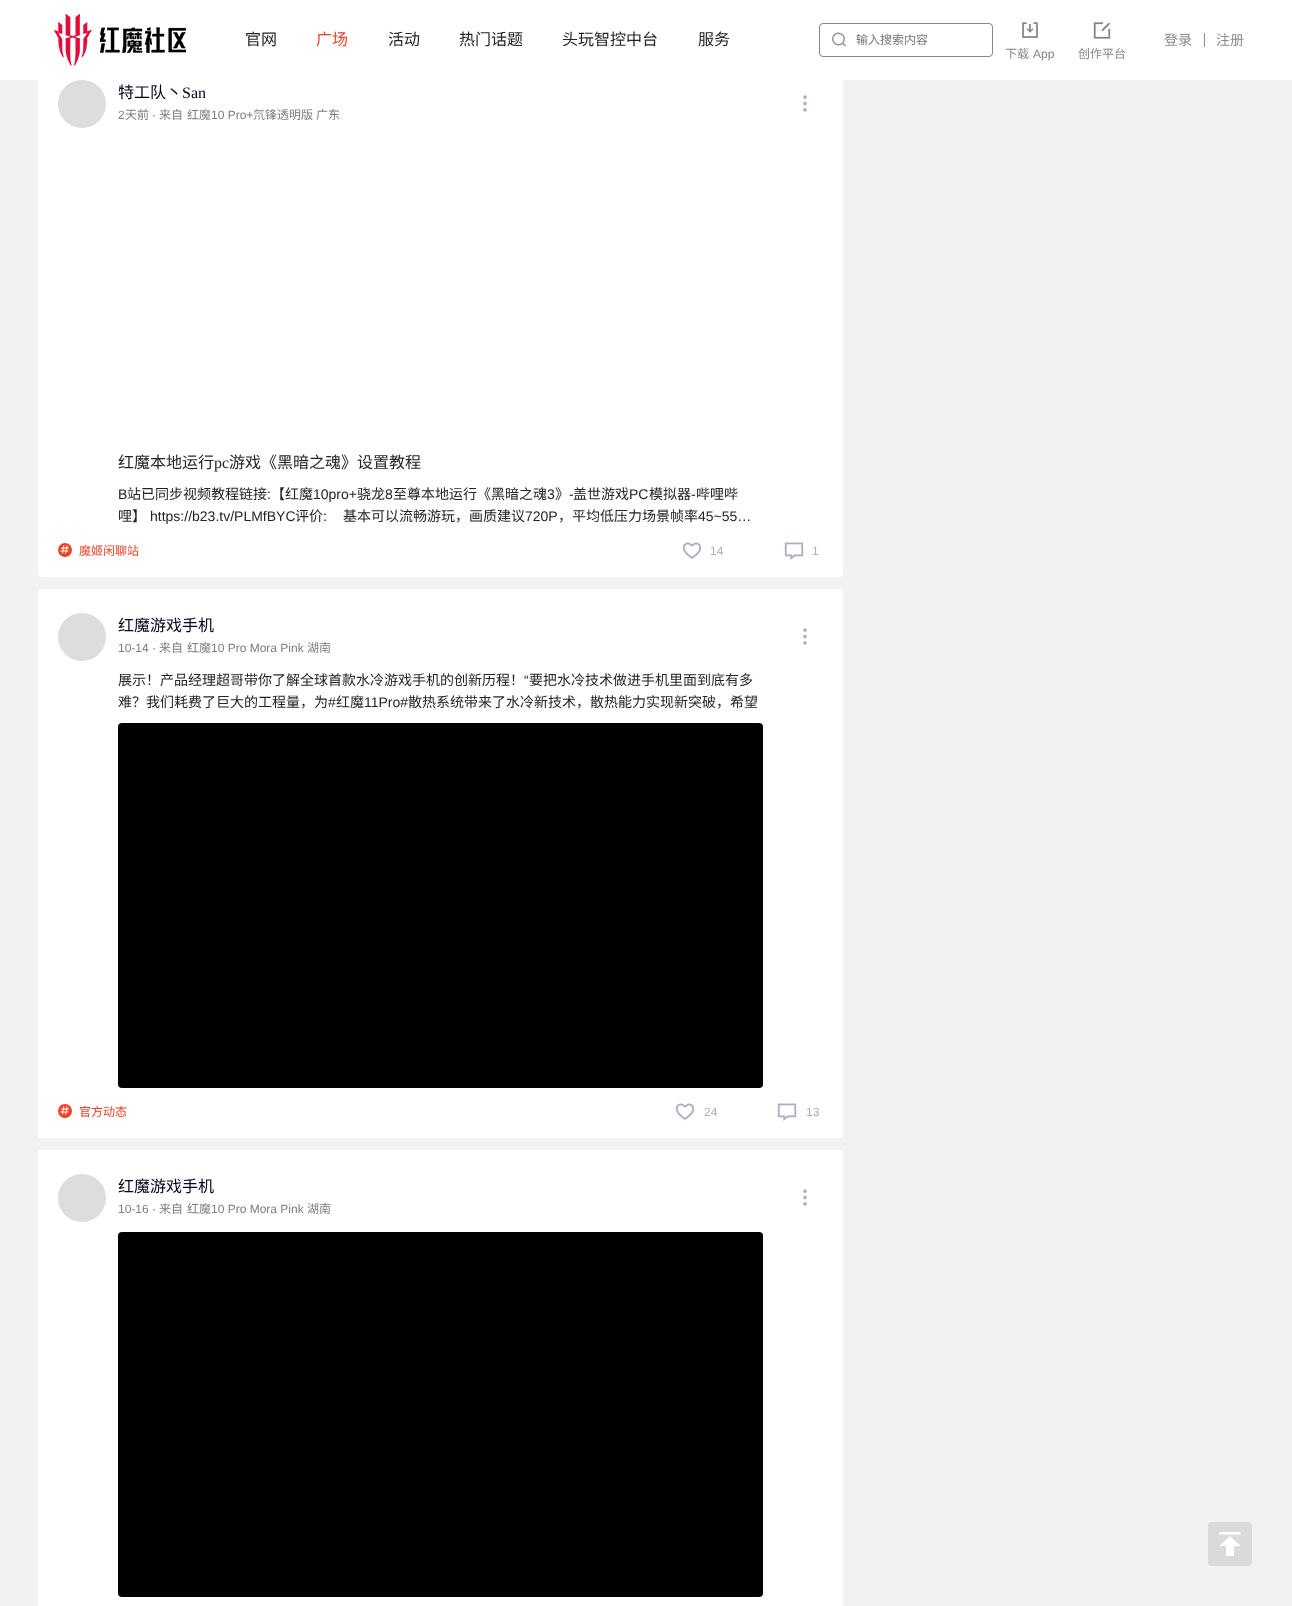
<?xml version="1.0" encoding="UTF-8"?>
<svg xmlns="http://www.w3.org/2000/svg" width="1292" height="1606">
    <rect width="100%" height="100%" fill="#F0F2F4"/>
    <rect x="38" y="56" width="805" height="521" rx="4" fill="#FFFFFF"/>
    <rect x="0" y="0" width="1292" height="80" fill="#FFFFFF"/>
    <image x="54" y="14" width="132" height="52" href="img_01.png"/>
    <text x="245" y="45" font-family="Noto Sans CJK SC" font-size="16" fill="#242426">官网</text>
    <text x="316" y="45" font-family="Noto Sans CJK SC" font-size="16" fill="#EF4123">广场</text>
    <text x="388" y="45" font-family="Noto Sans CJK SC" font-size="16" fill="#242426">活动</text>
    <text x="459" y="45" font-family="Noto Sans CJK SC" font-size="16" fill="#242426">热门话题</text>
    <text x="562" y="45" font-family="Noto Sans CJK SC" font-size="16" fill="#242426">头玩智控中台</text>
    <text x="698" y="45" font-family="Noto Sans CJK SC" font-size="16" fill="#242426">服务</text>
    <rect x="819.5" y="23.5" width="173" height="33" rx="3.5" fill="none" stroke="#85858A"/>
    <image x="832" y="32" width="14" height="15" href="img_02.png"/>
    <text x="856" y="44" font-family="Noto Sans CJK SC" font-size="12" fill="#757575">输入搜索内容</text>
    <text x="1164" y="45" font-family="Noto Sans CJK SC" font-size="14" fill="#8C8C8C">登录</text>
    <rect x="1204" y="33" width="1" height="14" fill="#8C8C8C"/>
    <text x="1216" y="45" font-family="Noto Sans CJK SC" font-size="14" fill="#8C8C8C">注册</text>
    <image x="1022" y="22" width="16" height="16" href="img_03.png"/>
    <text x="1005" y="58" font-family="Noto Sans CJK SC" font-size="12" fill="#858589">下载</text>
    <text x="1033" y="58" font-family="Liberation Sans" font-size="12" fill="#858589">App</text>
    <image x="1093" y="22" width="18" height="17" href="img_04.png"/>
    <text x="1078" y="58" font-family="Noto Sans CJK SC" font-size="12" fill="#858589">创作平台</text>
    <circle cx="82" cy="104" r="24" fill="#DDDDDD"/>
    <text x="118" y="98" font-family="Noto Sans CJK SC" font-size="16" fill="#00031C">特工队丶</text>
    <text x="182" y="98" font-family="Liberation Serif" font-size="16" fill="#00031C">San</text>
    <text x="118" y="119" font-family="Liberation Sans" font-size="12" fill="#797E83">2</text>
    <text x="125" y="119" font-family="Noto Sans CJK SC" font-size="12" fill="#797E83">天前</text>
    <text x="152" y="119" font-family="Liberation Sans" font-size="12" fill="#797E83">·</text>
    <text x="159" y="119" font-family="Noto Sans CJK SC" font-size="12" fill="#797E83">来自</text>
    <text x="187" y="119" font-family="Noto Sans CJK SC" font-size="12" fill="#797E83">红魔</text>
    <text x="211" y="119" font-family="Liberation Sans" font-size="12" fill="#797E83">10 Pro+</text>
    <text x="253" y="119" font-family="Noto Sans CJK SC" font-size="12" fill="#797E83">氘锋透明版</text>
    <text x="316" y="119" font-family="Noto Sans CJK SC" font-size="12" fill="#797E83">广东</text>
    <image x="803" y="95" width="4" height="17" href="img_05.png"/>
    <text x="118" y="468" font-family="Noto Sans CJK SC" font-size="16" fill="#242426">红魔本地运行</text>
    <text x="214" y="468" font-family="Liberation Serif" font-size="16" fill="#242426">pc</text>
    <text x="229" y="468" font-family="Noto Sans CJK SC" font-size="16" fill="#242426">游戏《黑暗之魂》设置教程</text>
    <text x="118" y="499" font-family="Liberation Sans" font-size="14" fill="#242426">B</text>
    <text x="127" y="499" font-family="Noto Sans CJK SC" font-size="14" fill="#242426">站已同步视频教程链接</text>
    <text x="267" y="499" font-family="Liberation Sans" font-size="14" fill="#242426">:</text>
    <text x="271" y="499" font-family="Noto Sans CJK SC" font-size="14" fill="#242426">【红魔</text>
    <text x="313" y="499" font-family="Liberation Sans" font-size="14" fill="#242426">10pro+</text>
    <text x="357" y="499" font-family="Noto Sans CJK SC" font-size="14" fill="#242426">骁龙</text>
    <text x="385" y="499" font-family="Liberation Sans" font-size="14" fill="#242426">8</text>
    <text x="393" y="499" font-family="Noto Sans CJK SC" font-size="14" fill="#242426">至尊本地运行《黑暗之魂</text>
    <text x="547" y="499" font-family="Liberation Sans" font-size="14" fill="#242426">3</text>
    <text x="555" y="499" font-family="Noto Sans CJK SC" font-size="14" fill="#242426">》</text>
    <text x="569" y="499" font-family="Liberation Sans" font-size="14" fill="#242426">-</text>
    <text x="573" y="499" font-family="Noto Sans CJK SC" font-size="14" fill="#242426">盖世游戏</text>
    <text x="629" y="499" font-family="Liberation Sans" font-size="14" fill="#242426">PC</text>
    <text x="649" y="499" font-family="Noto Sans CJK SC" font-size="14" fill="#242426">模拟器</text>
    <text x="691" y="499" font-family="Liberation Sans" font-size="14" fill="#242426">-</text>
    <text x="696" y="499" font-family="Noto Sans CJK SC" font-size="14" fill="#242426">哔哩哔</text>
    <text x="118" y="521" font-family="Noto Sans CJK SC" font-size="14" fill="#242426">哩】</text>
    <text x="150" y="521" font-family="Liberation Sans" font-size="14" fill="#242426">https://b23.tv/PLMfBYC</text>
    <text x="295" y="521" font-family="Noto Sans CJK SC" font-size="14" fill="#242426">评价</text>
    <text x="323" y="521" font-family="Liberation Sans" font-size="14" fill="#242426">:</text>
    <text x="343" y="521" font-family="Noto Sans CJK SC" font-size="14" fill="#242426">基本可以流畅游玩，画质建议</text>
    <text x="525" y="521" font-family="Liberation Sans" font-size="14" fill="#242426">720P</text>
    <text x="558" y="521" font-family="Noto Sans CJK SC" font-size="14" fill="#242426">，平均低压力场景帧率</text>
    <text x="698" y="521" font-family="Liberation Sans" font-size="14" fill="#242426">45~55…</text>
    <circle cx="65" cy="550" r="7" fill="#EF4123"/>
    <image x="60" y="545" width="9" height="9" href="img_06.png"/>
    <text x="79" y="555" font-family="Noto Sans CJK SC" font-size="12" fill="#EF4123">魔姬闲聊站</text>
    <image x="682" y="542" width="20" height="17" href="img_07.png"/>
    <text x="710" y="555" font-family="Liberation Sans" font-size="12" fill="#AAB0BF">14</text>
    <image x="784" y="542" width="20" height="18" href="img_08.png"/>
    <text x="812" y="555" font-family="Liberation Sans" font-size="12" fill="#AAB0BF">1</text>
    <rect x="38" y="589" width="805" height="549" rx="4" fill="#FFFFFF"/>
    <circle cx="82" cy="637" r="24" fill="#DDDDDD"/>
    <text x="118" y="631" font-family="Noto Sans CJK SC" font-size="16" fill="#00031C">红魔游戏手机</text>
    <text x="118" y="652" font-family="Liberation Sans" font-size="12" fill="#797E83">10-14 ·</text>
    <text x="159" y="652" font-family="Noto Sans CJK SC" font-size="12" fill="#797E83">来自</text>
    <text x="187" y="652" font-family="Noto Sans CJK SC" font-size="12" fill="#797E83">红魔</text>
    <text x="211" y="652" font-family="Liberation Sans" font-size="12" fill="#797E83">10 Pro Mora Pink</text>
    <text x="307" y="652" font-family="Noto Sans CJK SC" font-size="12" fill="#797E83">湖南</text>
    <image x="803" y="628" width="4" height="17" href="img_05.png"/>
    <text x="118" y="685" font-family="Noto Sans CJK SC" font-size="14" fill="#242426">展示！产品经理超哥带你了解全球首款水冷游戏手机的创新历程！</text>
    <text x="524" y="685" font-family="Liberation Sans" font-size="14" fill="#242426">“</text>
    <text x="529" y="685" font-family="Noto Sans CJK SC" font-size="14" fill="#242426">要把水冷技术做进手机里面到底有多</text>
    <text x="118" y="707" font-family="Noto Sans CJK SC" font-size="14" fill="#242426">难？我们耗费了巨大的工程量，为</text>
    <text x="328" y="707" font-family="Liberation Sans" font-size="14" fill="#242426">#</text>
    <text x="336" y="707" font-family="Noto Sans CJK SC" font-size="14" fill="#242426">红魔</text>
    <text x="364" y="707" font-family="Liberation Sans" font-size="14" fill="#242426">11Pro#</text>
    <text x="408" y="707" font-family="Noto Sans CJK SC" font-size="14" fill="#242426">散热系统带来了水冷新技术，散热能力实现新突破，希望</text>
    <rect x="118" y="723" width="645" height="365" rx="4" fill="#000000"/>
    <circle cx="65" cy="1111" r="7" fill="#EF4123"/>
    <image x="60" y="1106" width="9" height="9" href="img_06.png"/>
    <text x="79" y="1116" font-family="Noto Sans CJK SC" font-size="12" fill="#EF4123">官方动态</text>
    <image x="675" y="1103" width="20" height="17" href="img_07.png"/>
    <text x="704" y="1116" font-family="Liberation Sans" font-size="12" fill="#AAB0BF">24</text>
    <image x="777" y="1103" width="20" height="18" href="img_08.png"/>
    <text x="806" y="1116" font-family="Liberation Sans" font-size="12" fill="#AAB0BF">13</text>
    <rect x="38" y="1150" width="805" height="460" rx="4" fill="#FFFFFF"/>
    <circle cx="82" cy="1198" r="24" fill="#DDDDDD"/>
    <text x="118" y="1192" font-family="Noto Sans CJK SC" font-size="16" fill="#00031C">红魔游戏手机</text>
    <text x="118" y="1213" font-family="Liberation Sans" font-size="12" fill="#797E83">10-16 ·</text>
    <text x="159" y="1213" font-family="Noto Sans CJK SC" font-size="12" fill="#797E83">来自</text>
    <text x="187" y="1213" font-family="Noto Sans CJK SC" font-size="12" fill="#797E83">红魔</text>
    <text x="211" y="1213" font-family="Liberation Sans" font-size="12" fill="#797E83">10 Pro Mora Pink</text>
    <text x="307" y="1213" font-family="Noto Sans CJK SC" font-size="12" fill="#797E83">湖南</text>
    <image x="803" y="1189" width="4" height="17" href="img_05.png"/>
    <rect x="118" y="1232" width="645" height="365" rx="4" fill="#000000"/>
    <rect x="1208" y="1522" width="44" height="44" rx="4" fill="#D8DADC"/>
    <image x="1219" y="1532" width="22" height="24" href="img_09.png"/>
</svg>
